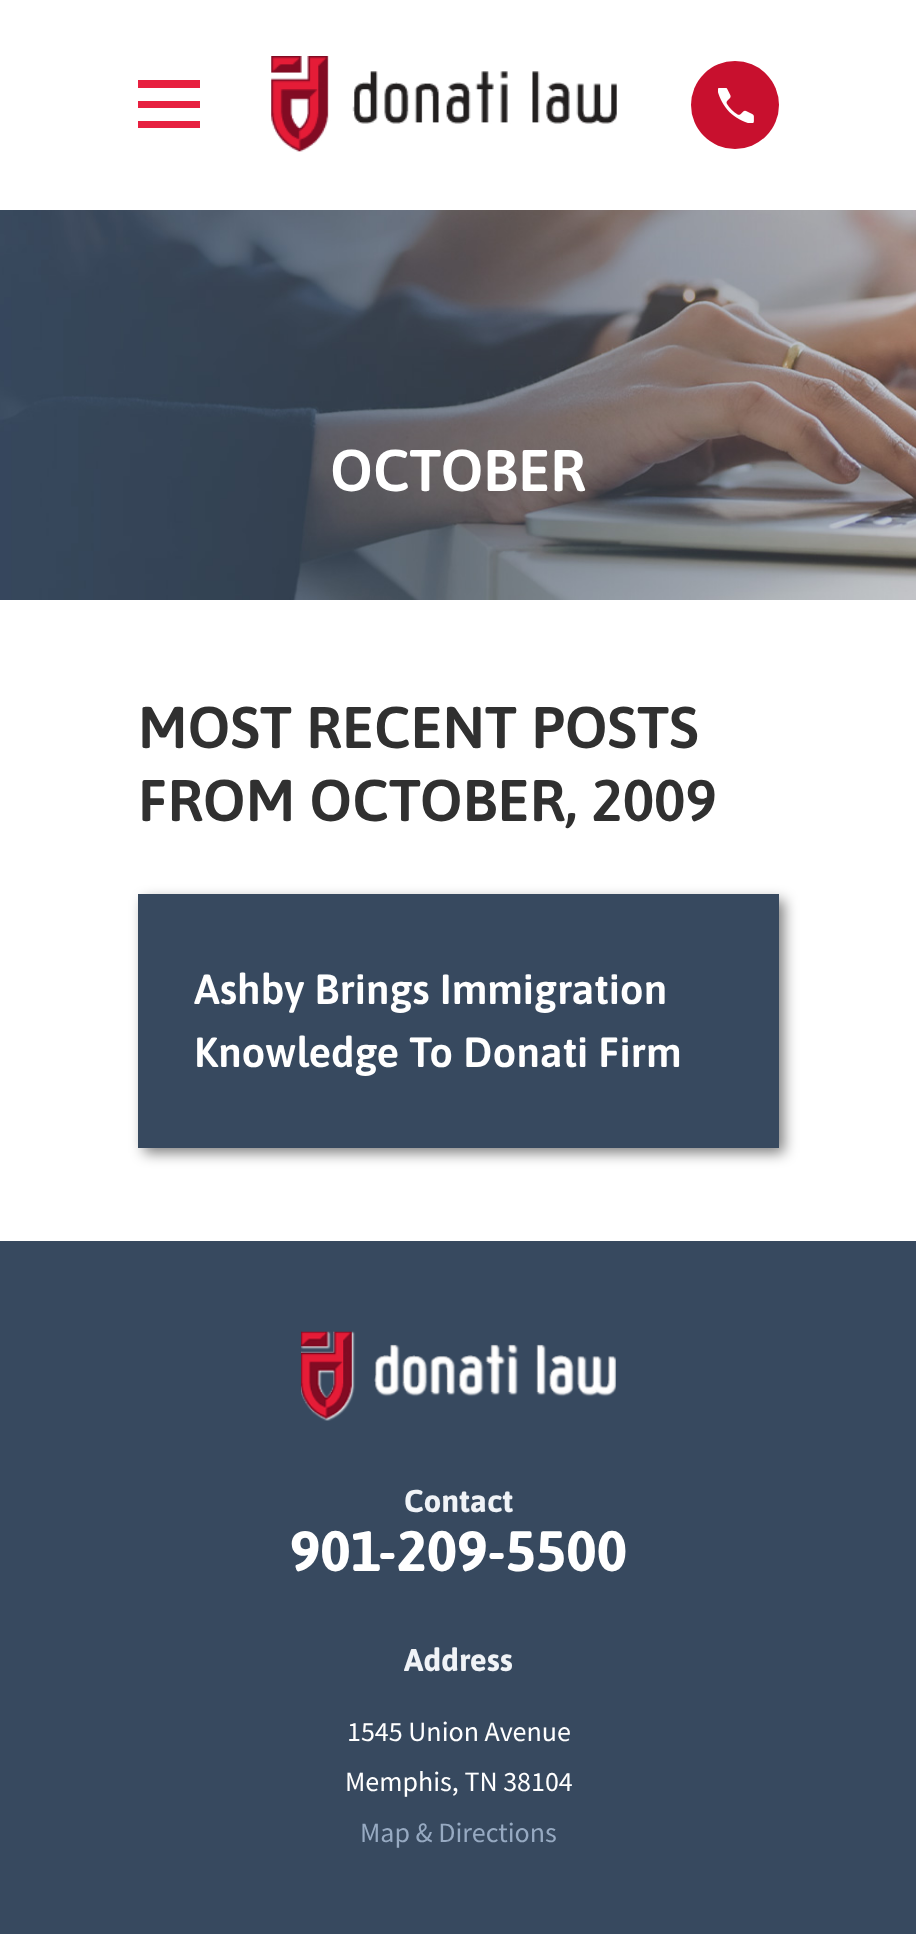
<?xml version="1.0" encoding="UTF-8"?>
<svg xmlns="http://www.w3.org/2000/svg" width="916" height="1934">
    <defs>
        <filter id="blur1" x="-50%" y="-200%" width="200%" height="500%"><feGaussianBlur stdDeviation="7"/></filter>
    </defs>
    <rect width="100%" height="100%" fill="#FFFFFF"/>
    <path d="M 138 80 V 88 H 200 V 80 Z M 138 101 V 108 H 200 V 101 Z M 138 121 V 128 H 200 V 121 Z" fill="#E72040"/>
    <image x="271" y="56" width="346" height="96" href="img_01.png"/>
    <circle cx="735" cy="105" r="44" fill="#C8102E"/>
    <image x="718" y="88" width="36" height="35" href="img_02.png"/>
    <image x="0" y="210" width="916" height="390" href="img_03.png"/>
    <text x="330" y="491" font-family="Asap" font-size="58.75" font-weight="600" fill="#FFFFFF">OCTOBER</text>
    <text font-family="Asap" font-size="58.75" font-weight="600" fill="#303030">
        <tspan x="138" y="748">MOST RECENT POSTS</tspan>
        <tspan x="138" y="821">FROM OCTOBER, 2009</tspan>
    </text>
    <rect x="144" y="900" width="640" height="253" fill="#000000" fill-opacity="0.5" filter="url(#blur1)"/>
    <rect x="138" y="894" width="641" height="254" fill="#37495F"/>
    <text font-family="Asap" font-size="42" font-weight="600" fill="#FFFFFF">
        <tspan x="194" y="1004">Ashby Brings Immigration</tspan>
        <tspan x="194" y="1067">Knowledge To Donati Firm</tspan>
    </text>
    <rect x="0" y="1241" width="916" height="693" fill="#37495F"/>
    <image x="301" y="1331" width="315" height="90" href="img_04.png"/>
    <text x="404" y="1512" font-family="Asap" font-size="31.5" font-weight="700" fill="#F0F3F7">Contact</text>
    <text x="290" y="1571" font-family="Asap" font-size="56.75" font-weight="700" fill="#FFFFFF">901-209-5500</text>
    <text x="404" y="1671" font-family="Asap" font-size="31.5" font-weight="700" fill="#F0F3F7">Address</text>
    <text x="347" y="1741" font-family="Source Sans Pro" font-size="28" fill="#FFFFFF">1545 Union Avenue</text>
    <text x="345" y="1791" font-family="Source Sans Pro" font-size="28" fill="#FFFFFF">Memphis, TN 38104</text>
    <text x="360" y="1842" font-family="Source Sans Pro" font-size="28" fill="#97AAC2">Map &amp; Directions</text>
</svg>
